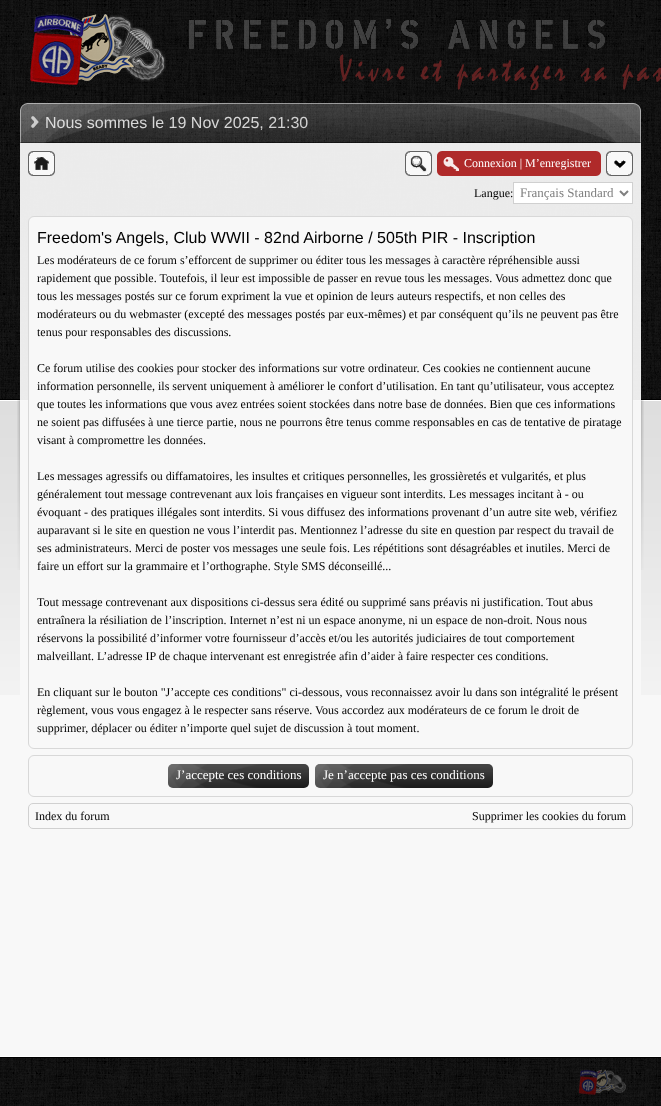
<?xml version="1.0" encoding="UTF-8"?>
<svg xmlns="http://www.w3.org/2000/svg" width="661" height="1106">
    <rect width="100%" height="100%" fill="#F8F8F8"/>
    <rect x="0" y="0" width="661" height="399" fill="#010101"/>
    <image x="0" y="0" width="661" height="399" href="img_01.png"/>
    <rect x="0" y="399" width="661" height="1" fill="#000000"/>
    <image x="0" y="401" width="661" height="294" href="img_02.png"/>
    <rect x="0" y="400" width="661" height="1" fill="#FFFFFF"/>
    <image x="17" y="400" width="3" height="170" href="img_03.png"/>
    <image x="641" y="400" width="3" height="170" href="img_04.png"/>
    <image x="30" y="14" width="631" height="76" href="img_05.png"/>
    <image x="260" y="103" width="141" height="40" href="img_06.png"/>
    <image x="31" y="116" width="8" height="12" href="img_09.png"/>
    <text x="45" y="128" font-family="Liberation Sans" font-size="16" fill="#D1D1D1">Nous sommes le 19 Nov 2025, 21:30</text>
    <image x="20" y="103" width="240" height="40" href="img_07.png"/>
    <image x="401" y="103" width="240" height="40" href="img_08.png"/>
    <rect x="20" y="143" width="621" height="552" fill="#F8F8F8" fill-opacity="0.95"/>
    <image x="28" y="151" width="27" height="25" href="img_10.png"/>
    <image x="405" y="151" width="27" height="25" href="img_11.png"/>
    <rect x="462" y="151" width="129" height="25" fill="#AF2A2A"/>
    <image x="437" y="151" width="25" height="25" href="img_12.png"/>
    <text x="464" y="167" font-family="Liberation Serif" font-size="12" fill="#FFFFFF">Connexion | M’enregistrer</text>
    <image x="591" y="151" width="10" height="25" href="img_13.png"/>
    <image x="606" y="151" width="27" height="25" href="img_14.png"/>
    <text x="474" y="197" font-family="Liberation Serif" font-size="12" fill="#000000">Langue:</text>
    <rect x="513.5" y="182.5" width="119" height="21" fill="#FFFFFF" stroke="#D0D0D0"/>
    <path d="M 620 191 L 624 195 L 628 191" fill="none" stroke="#808080" stroke-width="2"/>
    <text x="520" y="197" font-family="Liberation Serif" font-size="13" fill="#808080">Français Standard</text>
    <rect x="28.5" y="216.5" width="604" height="532" rx="5.5" fill="#F8F8F8" stroke="#D8D8D8"/>
    <text x="37" y="243" font-family="Liberation Sans" font-size="16" fill="#000000">Freedom's Angels, Club WWII - 82nd Airborne / 505th PIR - Inscription</text>
    <text font-family="Liberation Serif" font-size="12" fill="#000000">
        <tspan x="37" y="264">Les modérateurs de ce forum s’efforcent de supprimer ou éditer tous les messages à caractère répréhensible aussi</tspan>
        <tspan x="37" y="282">rapidement que possible. Toutefois, il leur est impossible de passer en revue tous les messages. Vous admettez donc que</tspan>
        <tspan x="37" y="300">tous les messages postés sur ce forum expriment la vue et opinion de leurs auteurs respectifs, et non celles des</tspan>
        <tspan x="37" y="318">modérateurs ou du webmaster (excepté des messages postés par eux-mêmes) et par conséquent qu’ils ne peuvent pas être</tspan>
        <tspan x="37" y="336">tenus pour responsables des discussions.</tspan>
    </text>
    <text font-family="Liberation Serif" font-size="12" fill="#000000">
        <tspan x="37" y="372">Ce forum utilise des cookies pour stocker des informations sur votre ordinateur. Ces cookies ne contiennent aucune</tspan>
        <tspan x="37" y="390">information personnelle, ils servent uniquement à améliorer le confort d’utilisation. En tant qu’utilisateur, vous acceptez</tspan>
        <tspan x="37" y="408">que toutes les informations que vous avez entrées soient stockées dans notre base de données. Bien que ces informations</tspan>
        <tspan x="37" y="426">ne soient pas diffusées à une tierce partie, nous ne pourrons être tenus comme responsables en cas de tentative de piratage</tspan>
        <tspan x="37" y="444">visant à compromettre les données.</tspan>
    </text>
    <text font-family="Liberation Serif" font-size="12" fill="#000000">
        <tspan x="37" y="480">Les messages agressifs ou diffamatoires, les insultes et critiques personnelles, les grossièretés et vulgarités, et plus</tspan>
        <tspan x="37" y="498">généralement tout message contrevenant aux lois françaises en vigueur sont interdits. Les messages incitant à - ou</tspan>
        <tspan x="37" y="516">évoquant - des pratiques illégales sont interdits. Si vous diffusez des informations provenant d’un autre site web, vérifiez</tspan>
        <tspan x="37" y="534">auparavant si le site en question ne vous l’interdit pas. Mentionnez l’adresse du site en question par respect du travail de</tspan>
        <tspan x="37" y="552">ses administrateurs. Merci de poster vos messages une seule fois. Les répétitions sont désagréables et inutiles. Merci de</tspan>
        <tspan x="37" y="570">faire un effort sur la grammaire et l’orthographe. Style SMS déconseillé...</tspan>
    </text>
    <text font-family="Liberation Serif" font-size="12" fill="#000000">
        <tspan x="37" y="606">Tout message contrevenant aux dispositions ci-dessus sera édité ou supprimé sans préavis ni justification. Tout abus</tspan>
        <tspan x="37" y="624">entraînera la résiliation de l’inscription. Internet n’est ni un espace anonyme, ni un espace de non-droit. Nous nous</tspan>
        <tspan x="37" y="642">réservons la possibilité d’informer votre fournisseur d’accès et/ou les autorités judiciaires de tout comportement</tspan>
        <tspan x="37" y="660">malveillant. L’adresse IP de chaque intervenant est enregistrée afin d’aider à faire respecter ces conditions.</tspan>
    </text>
    <text font-family="Liberation Serif" font-size="12" fill="#000000">
        <tspan x="37" y="696">En cliquant sur le bouton "J’accepte ces conditions" ci-dessous, vous reconnaissez avoir lu dans son intégralité le présent</tspan>
        <tspan x="37" y="714">règlement, vous vous engagez à le respecter sans réserve. Vous accordez aux modérateurs de ce forum le droit de</tspan>
        <tspan x="37" y="732">supprimer, déplacer ou éditer n’importe quel sujet de discussion à tout moment.</tspan>
    </text>
    <rect x="28.5" y="755.5" width="604" height="41" rx="5.5" fill="none" stroke="#D8D8D8"/>
    <rect x="168" y="764" width="141" height="24" rx="5" fill="#1C1C1C"/>
    <image x="168" y="764" width="141" height="24" href="img_15.png"/>
    <text x="176" y="779" font-family="Liberation Serif" font-size="13" fill="#FFFFFF">J’accepte ces conditions</text>
    <rect x="315" y="764" width="178" height="24" rx="5" fill="#1C1C1C"/>
    <image x="315" y="764" width="178" height="24" href="img_16.png"/>
    <text x="323" y="779" font-family="Liberation Serif" font-size="13" fill="#FFFFFF">Je n’accepte pas ces conditions</text>
    <rect x="28.5" y="803.5" width="604" height="25" rx="4.5" fill="none" stroke="#D0D0D0"/>
    <text x="35" y="820" font-family="Liberation Serif" font-size="12" fill="#000000">Index du forum</text>
    <text x="472" y="820" font-family="Liberation Serif" font-size="12" fill="#000000">Supprimer les cookies du forum</text>
    <rect x="0" y="1058" width="661" height="48" fill="#010101"/>
    <image x="0" y="1058" width="661" height="48" href="img_17.png"/>
    <rect x="0" y="1056" width="661" height="1" fill="#FFFFFF"/>
    <rect x="0" y="1057" width="661" height="1" fill="#000000"/>
    <image x="579" y="1069" width="47" height="26" href="img_18.png"/>
</svg>
